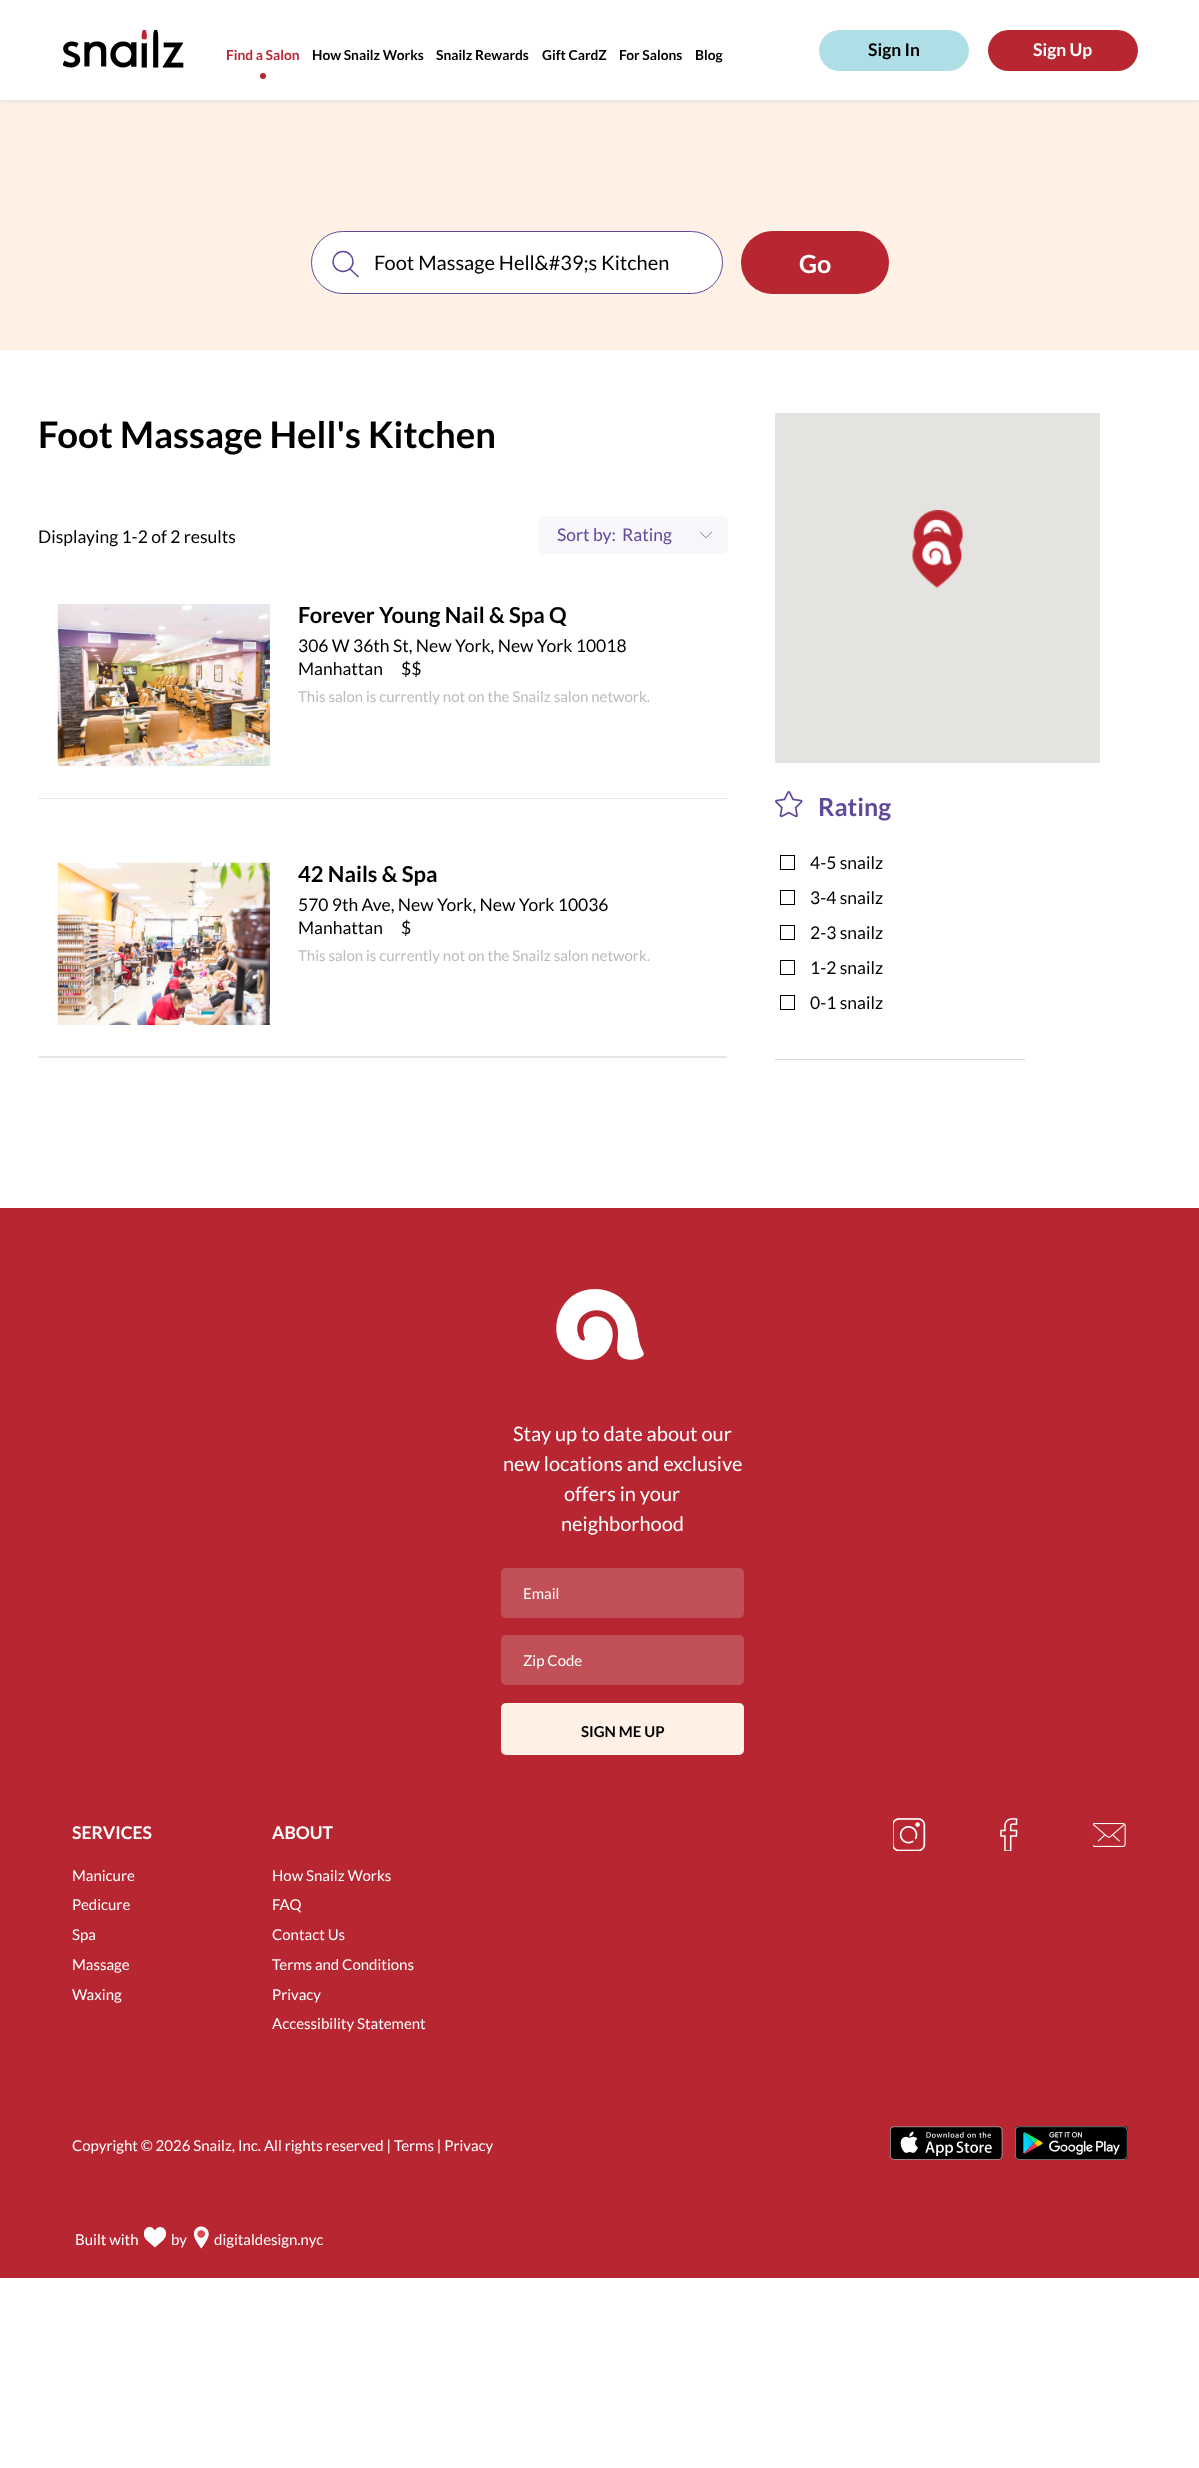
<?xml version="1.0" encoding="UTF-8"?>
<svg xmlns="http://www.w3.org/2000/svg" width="1199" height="2468">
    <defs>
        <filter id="blur1" x="-50%" y="-200%" width="200%" height="500%"><feGaussianBlur stdDeviation="2.5"/></filter>
    </defs>
    <rect width="100%" height="100%" fill="#FFFFFF"/>
    <rect x="0" y="100" width="1199" height="250" fill="#FFF1E6"/>
    <rect x="0" y="1" width="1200" height="100" fill="#DCDADA" filter="url(#blur1)"/>
    <rect x="0" y="0" width="1199" height="100" fill="#FFFFFF"/>
    <image x="63" y="30" width="121" height="38" href="img_01.png"/>
    <text x="226" y="60" font-family="Lato" font-size="13.75" font-weight="700" fill="#B82632">Find a Salon</text>
    <circle cx="263" cy="76" r="3" fill="#B82632"/>
    <text x="312" y="60" font-family="Lato" font-size="13.75" font-weight="700" fill="#000000">How Snailz Works</text>
    <text x="436" y="60" font-family="Lato" font-size="13.75" font-weight="700" fill="#000000">Snailz Rewards</text>
    <text x="542" y="60" font-family="Lato" font-size="13.75" font-weight="700" fill="#000000">Gift CardZ</text>
    <text x="619" y="60" font-family="Lato" font-size="13.75" font-weight="700" fill="#000000">For Salons</text>
    <text x="695" y="60" font-family="Lato" font-size="13.75" font-weight="700" fill="#000000">Blog</text>
    <rect x="819" y="30" width="150" height="41" rx="20.5" fill="#AEDFE7"/>
    <text x="868" y="56" font-family="'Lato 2'" font-size="17.5" font-weight="700" fill="#000000">Sign In</text>
    <rect x="988" y="30" width="150" height="41" rx="20.5" fill="#B82632"/>
    <text x="1033" y="56" font-family="'Lato 2'" font-size="17.5" font-weight="700" fill="#FFFFFF">Sign Up</text>
    <rect x="311.5" y="231.5" width="411" height="62" rx="31" fill="#FFFFFF" stroke="#61499A"/>
    <circle cx="343" cy="261.5" r="10" fill="none" stroke="#61499A" stroke-width="1.5"/>
    <path d="M 350 269 L 358 276.5" fill="none" stroke="#61499A" stroke-width="1.5" stroke-linecap="square"/>
    <text x="374" y="270" font-family="Lato" font-size="20" fill="#000000">Foot Massage Hell&amp;#39;s Kitchen</text>
    <rect x="741" y="231" width="148" height="63" rx="31.5" fill="#B82632"/>
    <text x="799" y="273" font-family="Lato" font-size="25" font-weight="700" fill="#FFFFFF">Go</text>
    <text x="38" y="448" font-family="Lato" font-size="36.5" font-weight="700" fill="#000000">Foot Massage Hell's Kitchen</text>
    <text x="38" y="543" font-family="Lato" font-size="17.5" fill="#000000">Displaying 1-2 of 2 results</text>
    <rect x="539" y="516" width="189" height="38" rx="5" fill="#F7F6FA"/>
    <text x="557" y="541" font-family="Lato" font-size="17.5" fill="#61499A">Sort by:</text>
    <image x="700" y="531" width="12" height="8" href="img_02.png"/>
    <text x="622" y="541" font-family="Lato" font-size="17.5" fill="#61499A">Rating</text>
    <path d="M 728 799 H 38 L 39 798 H 726 Z" fill="#E6E6E6"/>
    <image x="57" y="604" width="213" height="163" href="img_03.png"/>
    <text x="298" y="623" font-family="Lato" font-size="22" font-weight="700" fill="#000000">Forever Young Nail &amp; Spa Q</text>
    <text font-family="Lato" font-size="17.5" fill="#000000">
        <tspan x="298" y="652">306 W 36th St, New York, New York 10018</tspan>
        <tspan x="298" y="675">Manhattan</tspan>
    </text>
    <text x="401" y="675" font-family="Lato" font-size="17.5" fill="#000000">$$</text>
    <text x="298" y="702" font-family="Lato" font-size="15" fill="#BBBBBB">This salon is currently not on the Snailz salon network.</text>
    <path d="M 728 1058 H 38 L 39 1056 H 726 Z" fill="#E6E6E6"/>
    <image x="57" y="862" width="213" height="163" href="img_04.png"/>
    <text x="298" y="882" font-family="Lato" font-size="22" font-weight="700" fill="#000000">42 Nails &amp; Spa</text>
    <text font-family="Lato" font-size="17.5" fill="#000000">
        <tspan x="298" y="911">570 9th Ave, New York, New York 10036</tspan>
        <tspan x="298" y="934">Manhattan</tspan>
    </text>
    <text x="401" y="934" font-family="Lato" font-size="17.5" fill="#000000">$</text>
    <text x="298" y="961" font-family="Lato" font-size="15" fill="#BBBBBB">This salon is currently not on the Snailz salon network.</text>
    <rect x="775" y="413" width="325" height="350" fill="#E5E3DF"/>
    <image x="913" y="510" width="51" height="38" href="img_05.png"/>
    <image x="912" y="531" width="51" height="57" href="img_06.png"/>
    <rect x="775" y="1059" width="250" height="1" fill="#D7D7D7"/>
    <image x="775" y="791" width="28" height="27" href="img_07.png"/>
    <text x="818" y="816" font-family="Lato" font-size="25" font-weight="700" fill="#61499A">Rating</text>
    <rect x="780.5" y="855.5" width="14" height="14" fill="none" stroke="#000000"/>
    <text x="810" y="869" font-family="Lato" font-size="17.5" fill="#000000">4-5 snailz</text>
    <rect x="780.5" y="890.5" width="14" height="14" fill="none" stroke="#000000"/>
    <text x="810" y="904" font-family="Lato" font-size="17.5" fill="#000000">3-4 snailz</text>
    <rect x="780.5" y="925.5" width="14" height="14" fill="none" stroke="#000000"/>
    <text x="810" y="939" font-family="Lato" font-size="17.5" fill="#000000">2-3 snailz</text>
    <rect x="780.5" y="960.5" width="14" height="14" fill="none" stroke="#000000"/>
    <text x="810" y="974" font-family="Lato" font-size="17.5" fill="#000000">1-2 snailz</text>
    <rect x="780.5" y="995.5" width="14" height="14" fill="none" stroke="#000000"/>
    <text x="810" y="1009" font-family="Lato" font-size="17.5" fill="#000000">0-1 snailz</text>
    <rect x="0" y="1208" width="1199" height="1070" fill="#B82632"/>
    <image x="556" y="1289" width="88" height="71" href="img_08.png"/>
    <text x="513" y="1441" font-family="Lato" font-size="20" fill="#FFFFFF">Stay up to date about our</text>
    <text x="503" y="1471" font-family="Lato" font-size="20" fill="#FFFFFF">new locations and exclusive</text>
    <text x="564" y="1501" font-family="Lato" font-size="20" fill="#FFFFFF">offers in your</text>
    <text x="561" y="1531" font-family="Lato" font-size="20" fill="#FFFFFF">neighborhood</text>
    <rect x="501" y="1568" width="243" height="50" rx="5" fill="#C15059"/>
    <text x="523" y="1599" font-family="Lato" font-size="15" fill="#FFFFFF">Email</text>
    <rect x="501" y="1635" width="243" height="50" rx="5" fill="#C15059"/>
    <text x="523" y="1666" font-family="Lato" font-size="15" fill="#FFFFFF">Zip Code</text>
    <rect x="501" y="1703" width="243" height="52" rx="5" fill="#FFF1E6"/>
    <text x="581" y="1737" font-family="Lato" font-size="15" font-weight="700" fill="#000000">SIGN ME UP</text>
    <text x="72" y="1839" font-family="Lato" font-size="17.5" font-weight="700" fill="#FFFFFF">SERVICES</text>
    <text font-family="Lato" font-size="15" fill="#FFFFFF">
        <tspan x="72" y="1881">Manicure</tspan>
        <tspan x="72" y="1910">Pedicure</tspan>
    </text>
    <text x="72" y="1940" font-family="Lato" font-size="15" fill="#FFFFFF">Spa</text>
    <text x="72" y="1970" font-family="Lato" font-size="15" fill="#FFFFFF">Massage</text>
    <text x="72" y="2000" font-family="Lato" font-size="15" fill="#FFFFFF">Waxing</text>
    <text x="272" y="1839" font-family="Lato" font-size="17.5" font-weight="700" fill="#FFFFFF">ABOUT</text>
    <text font-family="Lato" font-size="15" fill="#FFFFFF">
        <tspan x="272" y="1881">How Snailz Works</tspan>
        <tspan x="272" y="1910">FAQ</tspan>
    </text>
    <text x="272" y="1940" font-family="Lato" font-size="15" fill="#FFFFFF">Contact Us</text>
    <text x="272" y="1970" font-family="Lato" font-size="15" fill="#FFFFFF">Terms and Conditions</text>
    <text font-family="Lato" font-size="15" fill="#FFFFFF">
        <tspan x="272" y="2000">Privacy</tspan>
        <tspan x="272" y="2029">Accessibility Statement</tspan>
    </text>
    <image x="893" y="1818" width="33" height="33" href="img_09.png"/>
    <image x="1000" y="1818" width="18" height="33" href="img_10.png"/>
    <image x="1093" y="1823" width="33" height="24" href="img_11.png"/>
    <text x="72" y="2151" font-family="Lato" font-size="15" fill="#FFFFFF">Copyright © 2026 Snailz, Inc. All rights reserved | Terms | Privacy</text>
    <image x="890" y="2126" width="113" height="34" href="img_12.png"/>
    <image x="1015" y="2126" width="113" height="34" href="img_13.png"/>
    <text x="75" y="2245" font-family="Lato" font-size="15" fill="#FFFFFF">Built with</text>
    <image x="144" y="2227" width="22" height="21" href="img_14.png"/>
    <text x="171" y="2245" font-family="Lato" font-size="15" fill="#FFFFFF">by</text>
    <image x="194" y="2226" width="15" height="23" href="img_15.png"/>
    <text x="214" y="2245" font-family="Lato" font-size="15" fill="#FFFFFF">digitaldesign.nyc</text>
</svg>
